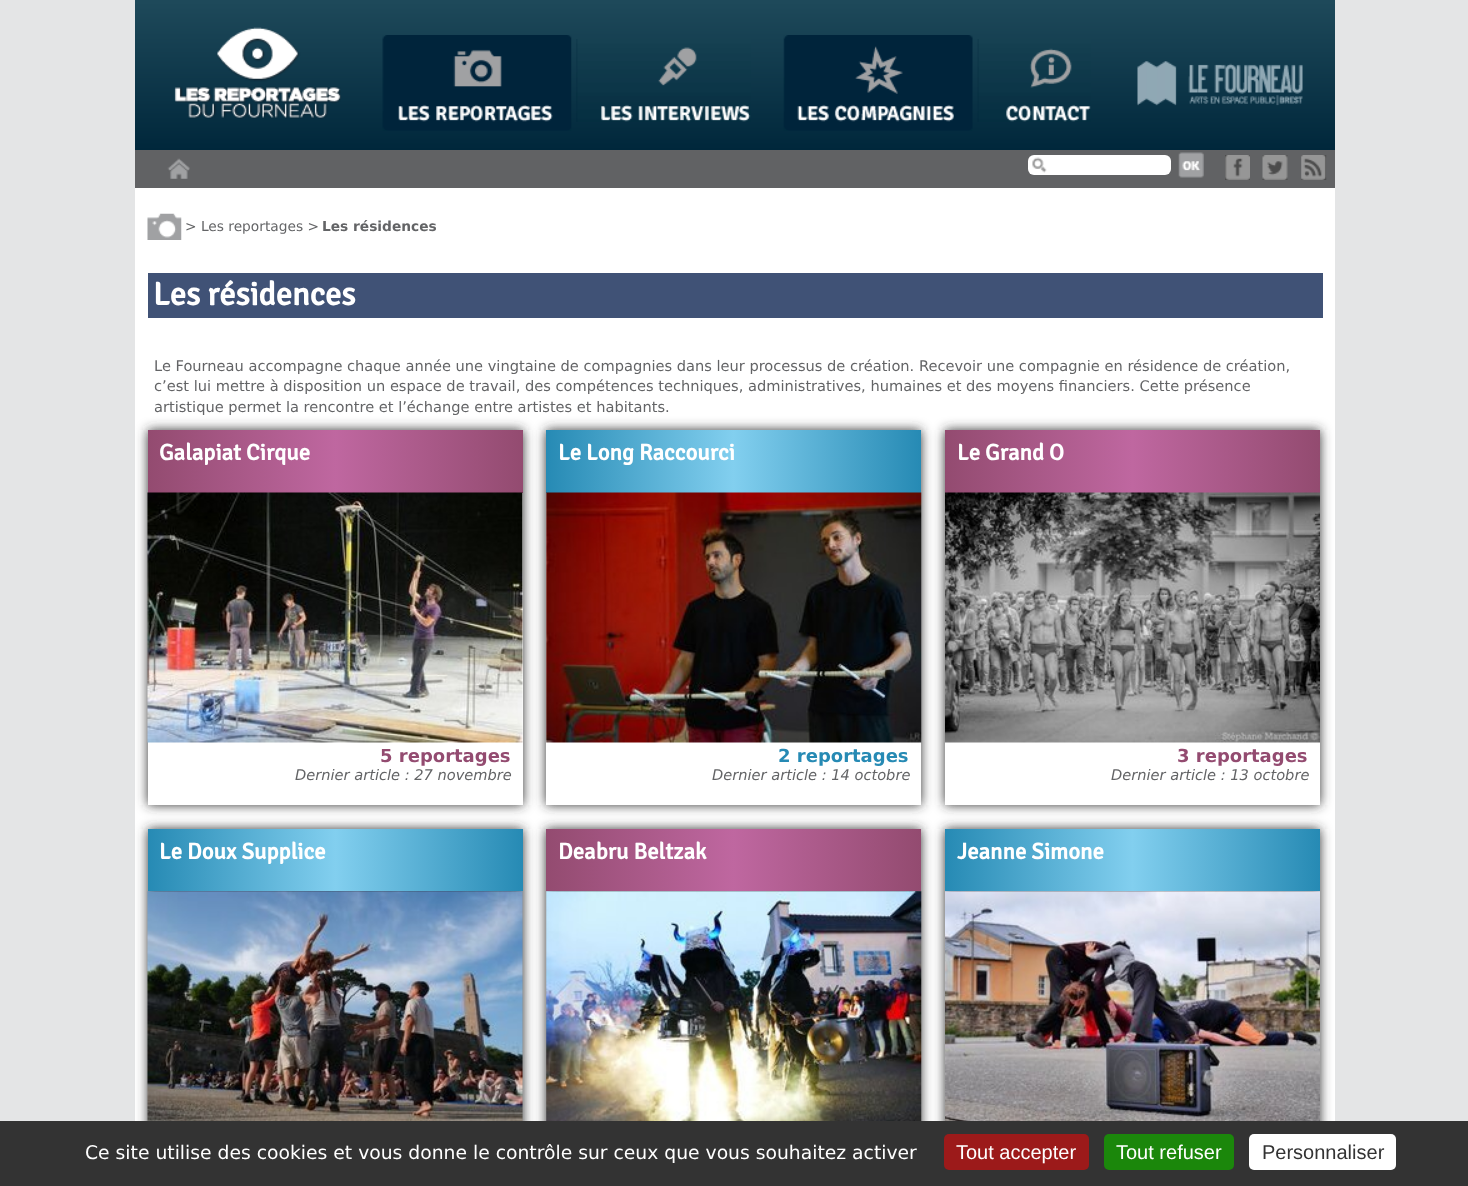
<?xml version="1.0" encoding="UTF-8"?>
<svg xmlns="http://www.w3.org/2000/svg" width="1468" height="1186">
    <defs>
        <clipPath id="clip1"><path d="M 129 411 H 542 V 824 H 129 Z M 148 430 H 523 V 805 H 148 Z" clip-rule="evenodd"/></clipPath>
        <filter id="blur1" x="-50%" y="-200%" width="200%" height="500%"><feGaussianBlur stdDeviation="6"/></filter>
        <clipPath id="clip2"><path d="M 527 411 H 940 V 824 H 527 Z M 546 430 H 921 V 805 H 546 Z" clip-rule="evenodd"/></clipPath>
        <linearGradient id="g1" gradientUnits="userSpaceOnUse" x1="148" y1="461" x2="523" y2="461"><stop offset="0" stop-color="#934B70"/><stop offset="0.5" stop-color="#BF67A0"/><stop offset="1" stop-color="#934B70"/></linearGradient>
        <linearGradient id="g2" gradientUnits="userSpaceOnUse" x1="546" y1="461" x2="921" y2="461"><stop offset="0" stop-color="#268AB4"/><stop offset="0.5" stop-color="#82CFEF"/><stop offset="1" stop-color="#268AB4"/></linearGradient>
        <clipPath id="clip3"><path d="M 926 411 H 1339 V 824 H 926 Z M 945 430 H 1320 V 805 H 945 Z" clip-rule="evenodd"/></clipPath>
        <linearGradient id="g3" gradientUnits="userSpaceOnUse" x1="945" y1="461" x2="1320" y2="461"><stop offset="0" stop-color="#934B70"/><stop offset="0.5" stop-color="#BF67A0"/><stop offset="1" stop-color="#934B70"/></linearGradient>
        <linearGradient id="g4" gradientUnits="userSpaceOnUse" x1="148" y1="860" x2="523" y2="860"><stop offset="0" stop-color="#268AB4"/><stop offset="0.5" stop-color="#82CFEF"/><stop offset="1" stop-color="#268AB4"/></linearGradient>
        <linearGradient id="g5" gradientUnits="userSpaceOnUse" x1="546" y1="860" x2="921" y2="860"><stop offset="0" stop-color="#934B70"/><stop offset="0.5" stop-color="#BF67A0"/><stop offset="1" stop-color="#934B70"/></linearGradient>
        <linearGradient id="g6" gradientUnits="userSpaceOnUse" x1="945" y1="860" x2="1320" y2="860"><stop offset="0" stop-color="#268AB4"/><stop offset="0.5" stop-color="#82CFEF"/><stop offset="1" stop-color="#268AB4"/></linearGradient>
    </defs>
    <rect width="100%" height="100%" fill="#E4E5E6"/>
    <rect x="135" y="188" width="1200" height="933" fill="#FFFFFF"/>
    <image x="135" y="0" width="1200" height="150" href="img_01.png"/>
    <image x="174" y="27" width="167" height="92" href="img_02.png"/>
    <image x="382" y="35" width="190" height="96" href="img_03.png"/>
    <image x="576" y="39" width="175" height="83" href="img_04.png"/>
    <image x="783" y="35" width="190" height="96" href="img_05.png"/>
    <image x="977" y="39" width="114" height="83" href="img_06.png"/>
    <image x="1137" y="61" width="166" height="45" href="img_07.png"/>
    <rect x="135" y="150" width="1200" height="38" fill="#616264"/>
    <image x="167" y="158" width="23" height="21" href="img_08.png"/>
    <rect x="1028" y="155" width="143" height="20" rx="6" fill="#FFFFFF"/>
    <image x="1032" y="157" width="15" height="16" href="img_09.png"/>
    <image x="1178" y="152" width="26" height="26" href="img_10.png"/>
    <image x="1225" y="155" width="25" height="25" href="img_11.png"/>
    <image x="1262" y="155" width="26" height="25" href="img_12.png"/>
    <image x="1301" y="155" width="26" height="25" href="img_13.png"/>
    <image x="147" y="213" width="35" height="27" href="img_14.png"/>
    <text x="185" y="231" font-family="DejaVu Sans" font-size="13.75" fill="#636466">&gt; Les reportages &gt;</text>
    <text x="322" y="231" font-family="DejaVu Sans" font-size="13.75" font-weight="700" fill="#636466">Les résidences</text>
    <rect x="148" y="273" width="1175" height="45" fill="#405276"/>
    <text x="153" y="305" font-family="Signika" font-size="32.5" font-weight="700" fill="#FFFFFF">Les résidences</text>
    <text font-family="DejaVu Sans" font-size="14.62" fill="#636466">
        <tspan x="154" y="371">Le Fourneau accompagne chaque année une vingtaine de compagnies dans leur processus de création. Recevoir une compagnie en résidence de création,</tspan>
        <tspan x="154" y="391">c’est lui mettre à disposition un espace de travail, des compétences techniques, administratives, humaines et des moyens financiers. Cette présence</tspan>
    </text>
    <g clip-path="url(#clip1)">
        <rect x="148" y="430" width="375" height="375" fill="#333333" filter="url(#blur1)"/>
    </g>
    <g clip-path="url(#clip2)">
        <rect x="546" y="430" width="375" height="375" fill="#333333" filter="url(#blur1)"/>
    </g>
    <text x="154" y="412" font-family="DejaVu Sans" font-size="14.62" fill="#636466">artistique permet la rencontre et l’échange entre artistes et habitants.</text>
    <rect x="148" y="430" width="375" height="63" fill="url(#g1)"/>
    <text x="159" y="460" font-family="Signika" font-size="22.75" font-weight="700" fill="#FFFFFF">Galapiat Cirque</text>
    <image x="147" y="492" width="376" height="251" href="img_15.png"/>
    <text x="380" y="762" font-family="DejaVu Sans" font-size="18" font-weight="700" fill="#934B70">5 reportages</text>
    <text x="295" y="780" font-family="DejaVu Sans" font-size="14.62" font-style="italic" fill="#636466">Dernier article : 27 novembre</text>
    <rect x="546" y="430" width="375" height="63" fill="url(#g2)"/>
    <text x="558" y="460" font-family="Signika" font-size="22.75" font-weight="700" fill="#FFFFFF">Le Long Raccourci</text>
    <image x="546" y="492" width="376" height="251" href="img_16.png"/>
    <text x="778" y="762" font-family="DejaVu Sans" font-size="18" font-weight="700" fill="#268AB4">2 reportages</text>
    <text x="712" y="780" font-family="DejaVu Sans" font-size="14.62" font-style="italic" fill="#636466">Dernier article : 14 octobre</text>
    <g clip-path="url(#clip3)">
        <rect x="945" y="430" width="375" height="375" fill="#333333" filter="url(#blur1)"/>
    </g>
    <rect x="945" y="430" width="375" height="63" fill="url(#g3)"/>
    <text x="957" y="460" font-family="Signika" font-size="22.75" font-weight="700" fill="#FFFFFF">Le Grand O</text>
    <image x="945" y="492" width="375" height="251" href="img_17.png"/>
    <text x="1177" y="762" font-family="DejaVu Sans" font-size="18" font-weight="700" fill="#934B70">3 reportages</text>
    <text x="1111" y="780" font-family="DejaVu Sans" font-size="14.62" font-style="italic" fill="#636466">Dernier article : 13 octobre</text>
    <rect x="148" y="829" width="375" height="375" fill="#333333" filter="url(#blur1)"/>
    <rect x="148" y="829" width="375" height="62" fill="url(#g4)"/>
    <text x="159" y="859" font-family="Signika" font-size="22.75" font-weight="700" fill="#FFFFFF">Le Doux Supplice</text>
    <image x="147" y="891" width="376" height="230" href="img_18.png"/>
    <rect x="546" y="829" width="375" height="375" fill="#333333" filter="url(#blur1)"/>
    <rect x="546" y="829" width="375" height="62" fill="url(#g5)"/>
    <text x="558" y="859" font-family="Signika" font-size="22.75" font-weight="700" fill="#FFFFFF">Deabru Beltzak</text>
    <image x="546" y="891" width="376" height="230" href="img_19.png"/>
    <rect x="945" y="829" width="375" height="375" fill="#333333" filter="url(#blur1)"/>
    <rect x="945" y="829" width="375" height="62" fill="url(#g6)"/>
    <text x="957" y="859" font-family="Signika" font-size="22.75" font-weight="700" fill="#FFFFFF">Jeanne Simone</text>
    <image x="945" y="891" width="375" height="230" href="img_20.png"/>
    <rect x="0" y="1121" width="1468" height="65" fill="#333333"/>
    <text x="85" y="1159" font-family="DejaVu Sans" font-size="18.75" fill="#FFFFFF">Ce site utilise des cookies et vous donne le contrôle sur ceux que vous souhaitez activer</text>
    <rect x="944" y="1134" width="145" height="36" rx="5" fill="#9C1A1A"/>
    <text x="956" y="1159" font-family="Liberation Sans" font-size="20" fill="#FFFFFF">Tout accepter</text>
    <rect x="1104" y="1134" width="130" height="36" rx="5" fill="#1B870B"/>
    <text x="1116" y="1159" font-family="Liberation Sans" font-size="20" fill="#FFFFFF">Tout refuser</text>
    <rect x="1249" y="1134" width="147" height="36" rx="5" fill="#FFFFFF"/>
    <text x="1262" y="1159" font-family="Liberation Sans" font-size="20" fill="#333333">Personnaliser</text>
</svg>
